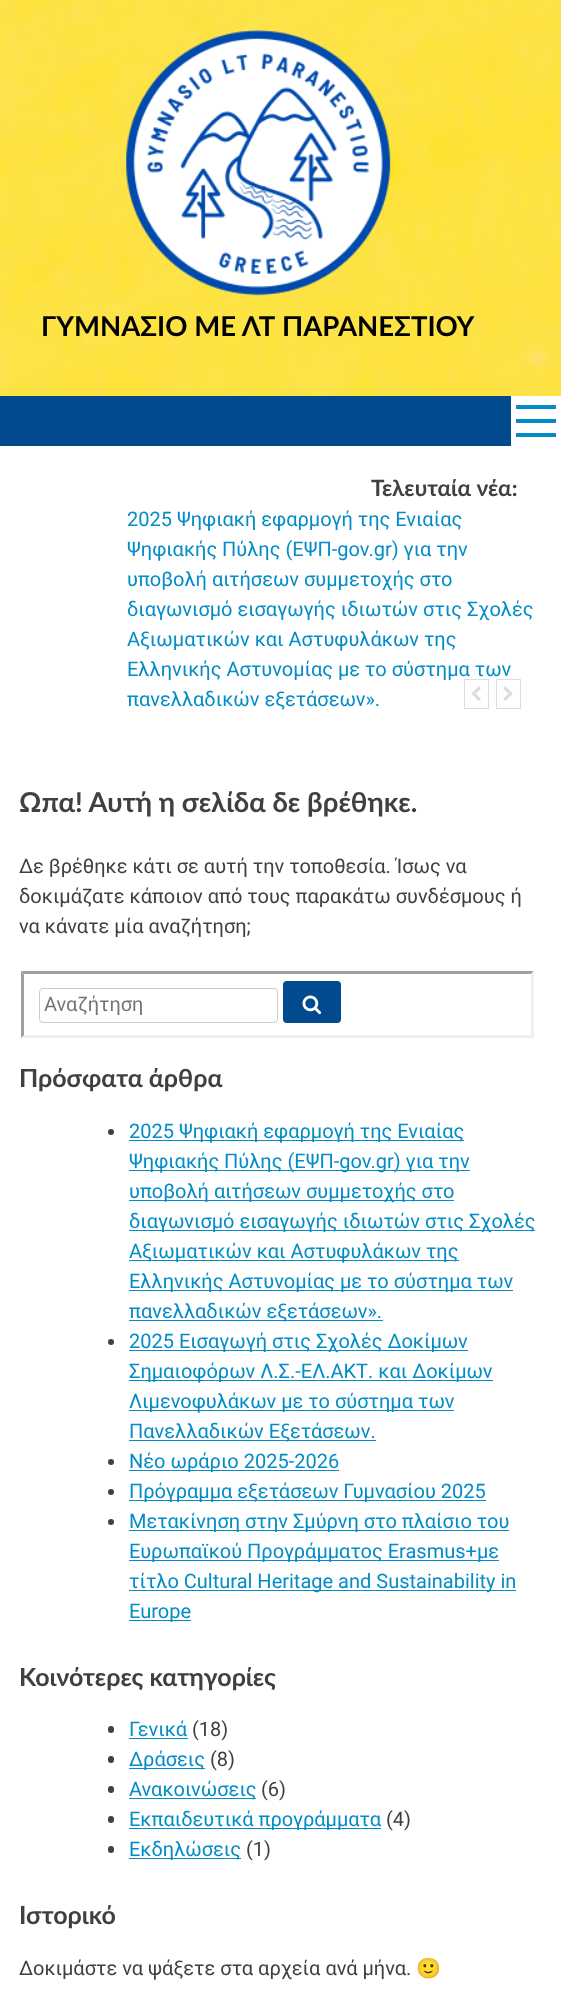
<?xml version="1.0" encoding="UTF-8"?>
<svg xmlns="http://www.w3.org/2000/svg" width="561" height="2012">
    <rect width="100%" height="100%" fill="#FFFFFF"/>
    <image x="0" y="0" width="561" height="396" href="img_01.png"/>
    <image x="125" y="30" width="266" height="266" href="img_02.png"/>
    <text x="41" y="336" font-family="Lato" font-size="27.5" font-weight="700" fill="#000000">ΓΥΜΝΑΣΙΟ ΜΕ ΛΤ ΠΑΡΑΝΕΣΤΙΟΥ</text>
    <rect x="0" y="396" width="511" height="50" fill="#014A8D"/>
    <rect x="516" y="405" width="40" height="4" fill="#038CC7"/>
    <rect x="516" y="419" width="40" height="4" fill="#038CC7"/>
    <rect x="516" y="433" width="40" height="4" fill="#038CC7"/>
    <text x="371" y="496" font-family="Lato" font-size="22.5" font-weight="700" fill="#404040">Τελευταία νέα:</text>
    <text font-family="Roboto" font-size="20" fill="#038CC7">
        <tspan x="127" y="526">2025 Ψηφιακή εφαρμογή της Ενιαίας</tspan>
        <tspan x="127" y="556">Ψηφιακής Πύλης (ΕΨΠ-gov.gr) για την</tspan>
        <tspan x="127" y="586">υποβολή αιτήσεων συμμετοχής στο</tspan>
        <tspan x="127" y="616">διαγωνισμό εισαγωγής ιδιωτών στις Σχολές</tspan>
        <tspan x="127" y="646">Αξιωματικών και Αστυφυλάκων της</tspan>
        <tspan x="127" y="676">Ελληνικής Αστυνομίας με το σύστημα των</tspan>
        <tspan x="127" y="706">πανελλαδικών εξετάσεων».</tspan>
    </text>
    <rect x="464.5" y="679.5" width="24" height="29" fill="none" stroke="#DDDDDD"/>
    <image x="471" y="686" width="10" height="15" href="img_03.png"/>
    <rect x="496.5" y="679.5" width="24" height="29" fill="none" stroke="#DDDDDD"/>
    <image x="503" y="686" width="10" height="15" href="img_04.png"/>
    <text x="19" y="812" font-family="Lato" font-size="27.5" font-weight="700" fill="#404040">Ωπα! Αυτή η σελίδα δε βρέθηκε.</text>
    <text font-family="Roboto" font-size="20" fill="#404040">
        <tspan x="19" y="873">Δε βρέθηκε κάτι σε αυτή την τοποθεσία. Ίσως να</tspan>
        <tspan x="19" y="903">δοκιμάζατε κάποιον από τους παρακάτω συνδέσμους ή</tspan>
        <tspan x="19" y="933">να κάνατε μία αναζήτηση;</tspan>
    </text>
    <path d="M 21 971 H 534 L 531 974 H 24 Z" fill="#9F9F9F"/>
    <path d="M 534 971 V 1038 L 531 1035 V 974 Z" fill="#EFEFEF"/>
    <path d="M 534 1038 H 21 L 24 1035 H 531 Z" fill="#EFEFEF"/>
    <path d="M 21 1038 V 971 L 24 974 V 1035 Z" fill="#9F9F9F"/>
    <rect x="39.5" y="988.5" width="238" height="34" rx="3.5" fill="none" stroke="#CCCCCC"/>
    <text x="44" y="1011" font-family="Roboto" font-size="20" fill="#757575">Αναζήτηση</text>
    <rect x="283" y="981" width="58" height="42" rx="4" fill="#014A8D"/>
    <image x="302" y="995" width="20" height="20" href="img_05.png"/>
    <text x="19" y="1087" font-family="Lato" font-size="25" font-weight="700" fill="#404040">Πρόσφατα άρθρα</text>
    <circle cx="111" cy="1132" r="3" fill="#404040"/>
    <rect x="129" y="1140" width="335" height="1" fill="#038CC7"/>
    <text x="129" y="1138" font-family="Roboto" font-size="20" fill="#038CC7">2025 Ψηφιακή εφαρμογή της Ενιαίας</text>
    <rect x="129" y="1170" width="341" height="1" fill="#038CC7"/>
    <text x="129" y="1168" font-family="Roboto" font-size="20" fill="#038CC7">Ψηφιακής Πύλης (ΕΨΠ-gov.gr) για την</text>
    <rect x="129" y="1200" width="325" height="1" fill="#038CC7"/>
    <text x="129" y="1198" font-family="Roboto" font-size="20" fill="#038CC7">υποβολή αιτήσεων συμμετοχής στο</text>
    <rect x="129" y="1230" width="406" height="1" fill="#038CC7"/>
    <text x="129" y="1228" font-family="Roboto" font-size="20" fill="#038CC7">διαγωνισμό εισαγωγής ιδιωτών στις Σχολές</text>
    <rect x="129" y="1260" width="330" height="1" fill="#038CC7"/>
    <text x="129" y="1258" font-family="Roboto" font-size="20" fill="#038CC7">Αξιωματικών και Αστυφυλάκων της</text>
    <rect x="129" y="1290" width="384" height="1" fill="#038CC7"/>
    <text x="129" y="1288" font-family="Roboto" font-size="20" fill="#038CC7">Ελληνικής Αστυνομίας με το σύστημα των</text>
    <rect x="129" y="1320" width="254" height="1" fill="#038CC7"/>
    <text x="129" y="1318" font-family="Roboto" font-size="20" fill="#038CC7">πανελλαδικών εξετάσεων».</text>
    <circle cx="111" cy="1342" r="3" fill="#404040"/>
    <rect x="129" y="1350" width="339" height="1" fill="#038CC7"/>
    <text x="129" y="1348" font-family="Roboto" font-size="20" fill="#038CC7">2025 Εισαγωγή στις Σχολές Δοκίμων</text>
    <rect x="129" y="1380" width="364" height="1" fill="#038CC7"/>
    <text x="129" y="1378" font-family="Roboto" font-size="20" fill="#038CC7">Σημαιοφόρων Λ.Σ.-ΕΛ.ΑΚΤ. και Δοκίμων</text>
    <rect x="129" y="1410" width="325" height="1" fill="#038CC7"/>
    <text x="129" y="1408" font-family="Roboto" font-size="20" fill="#038CC7">Λιμενοφυλάκων με το σύστημα των</text>
    <rect x="129" y="1440" width="247" height="1" fill="#038CC7"/>
    <text x="129" y="1438" font-family="Roboto" font-size="20" fill="#038CC7">Πανελλαδικών Εξετάσεων.</text>
    <circle cx="111" cy="1462" r="3" fill="#404040"/>
    <rect x="129" y="1470" width="210" height="1" fill="#038CC7"/>
    <text x="129" y="1468" font-family="Roboto" font-size="20" fill="#038CC7">Νέο ωράριο 2025-2026</text>
    <circle cx="111" cy="1492" r="3" fill="#404040"/>
    <rect x="129" y="1500" width="357" height="1" fill="#038CC7"/>
    <text x="129" y="1498" font-family="Roboto" font-size="20" fill="#038CC7">Πρόγραμμα εξετάσεων Γυμνασίου 2025</text>
    <circle cx="111" cy="1522" r="3" fill="#404040"/>
    <rect x="129" y="1530" width="380" height="1" fill="#038CC7"/>
    <text x="129" y="1528" font-family="Roboto" font-size="20" fill="#038CC7">Μετακίνηση στην Σμύρνη στο πλαίσιο του</text>
    <rect x="129" y="1560" width="370" height="1" fill="#038CC7"/>
    <text x="129" y="1558" font-family="Roboto" font-size="20" fill="#038CC7">Ευρωπαϊκού Προγράμματος Erasmus+με</text>
    <rect x="129" y="1590" width="387" height="1" fill="#038CC7"/>
    <text x="129" y="1588" font-family="Roboto" font-size="20" fill="#038CC7">τίτλο Cultural Heritage and Sustainability in</text>
    <rect x="129" y="1620" width="62" height="1" fill="#038CC7"/>
    <text x="129" y="1618" font-family="Roboto" font-size="20" fill="#038CC7">Europe</text>
    <text x="19" y="1686" font-family="Lato" font-size="25" font-weight="700" fill="#404040">Κοινότερες κατηγορίες</text>
    <rect x="108" y="1726" width="6" height="7" rx="3" fill="#404040"/>
    <text x="129" y="1736" font-family="Roboto" font-size="20" fill="#038CC7">Γενικά</text>
    <rect x="129" y="1738" width="59" height="1" fill="#038CC7"/>
    <text x="192" y="1736" font-family="Roboto" font-size="20" fill="#404040">(18)</text>
    <rect x="108" y="1756" width="6" height="7" rx="3" fill="#404040"/>
    <rect x="129" y="1768" width="76" height="1" fill="#038CC7"/>
    <text x="129" y="1766" font-family="Roboto" font-size="20" fill="#038CC7">Δράσεις</text>
    <text x="210" y="1766" font-family="Roboto" font-size="20" fill="#404040">(8)</text>
    <rect x="108" y="1786" width="6" height="7" rx="3" fill="#404040"/>
    <rect x="129" y="1798" width="127" height="1" fill="#038CC7"/>
    <text x="129" y="1796" font-family="Roboto" font-size="20" fill="#038CC7">Ανακοινώσεις</text>
    <text x="261" y="1796" font-family="Roboto" font-size="20" fill="#404040">(6)</text>
    <rect x="108" y="1816" width="6" height="7" rx="3" fill="#404040"/>
    <rect x="129" y="1828" width="252" height="1" fill="#038CC7"/>
    <text x="129" y="1826" font-family="Roboto" font-size="20" fill="#038CC7">Εκπαιδευτικά προγράμματα</text>
    <text x="386" y="1826" font-family="Roboto" font-size="20" fill="#404040">(4)</text>
    <rect x="108" y="1846" width="6" height="7" rx="3" fill="#404040"/>
    <rect x="129" y="1858" width="112" height="1" fill="#038CC7"/>
    <text x="129" y="1856" font-family="Roboto" font-size="20" fill="#038CC7">Εκδηλώσεις</text>
    <text x="246" y="1856" font-family="Roboto" font-size="20" fill="#404040">(1)</text>
    <text x="19" y="1924" font-family="Lato" font-size="25" font-weight="700" fill="#404040">Ιστορικό</text>
    <text x="19" y="1975" font-family="Roboto" font-size="20" fill="#404040">Δοκιμάστε να ψάξετε στα αρχεία ανά μήνα.</text>
    <text x="416" y="1975" font-family="Noto Color Emoji" font-size="20" fill="#404040">🙂</text>
</svg>
